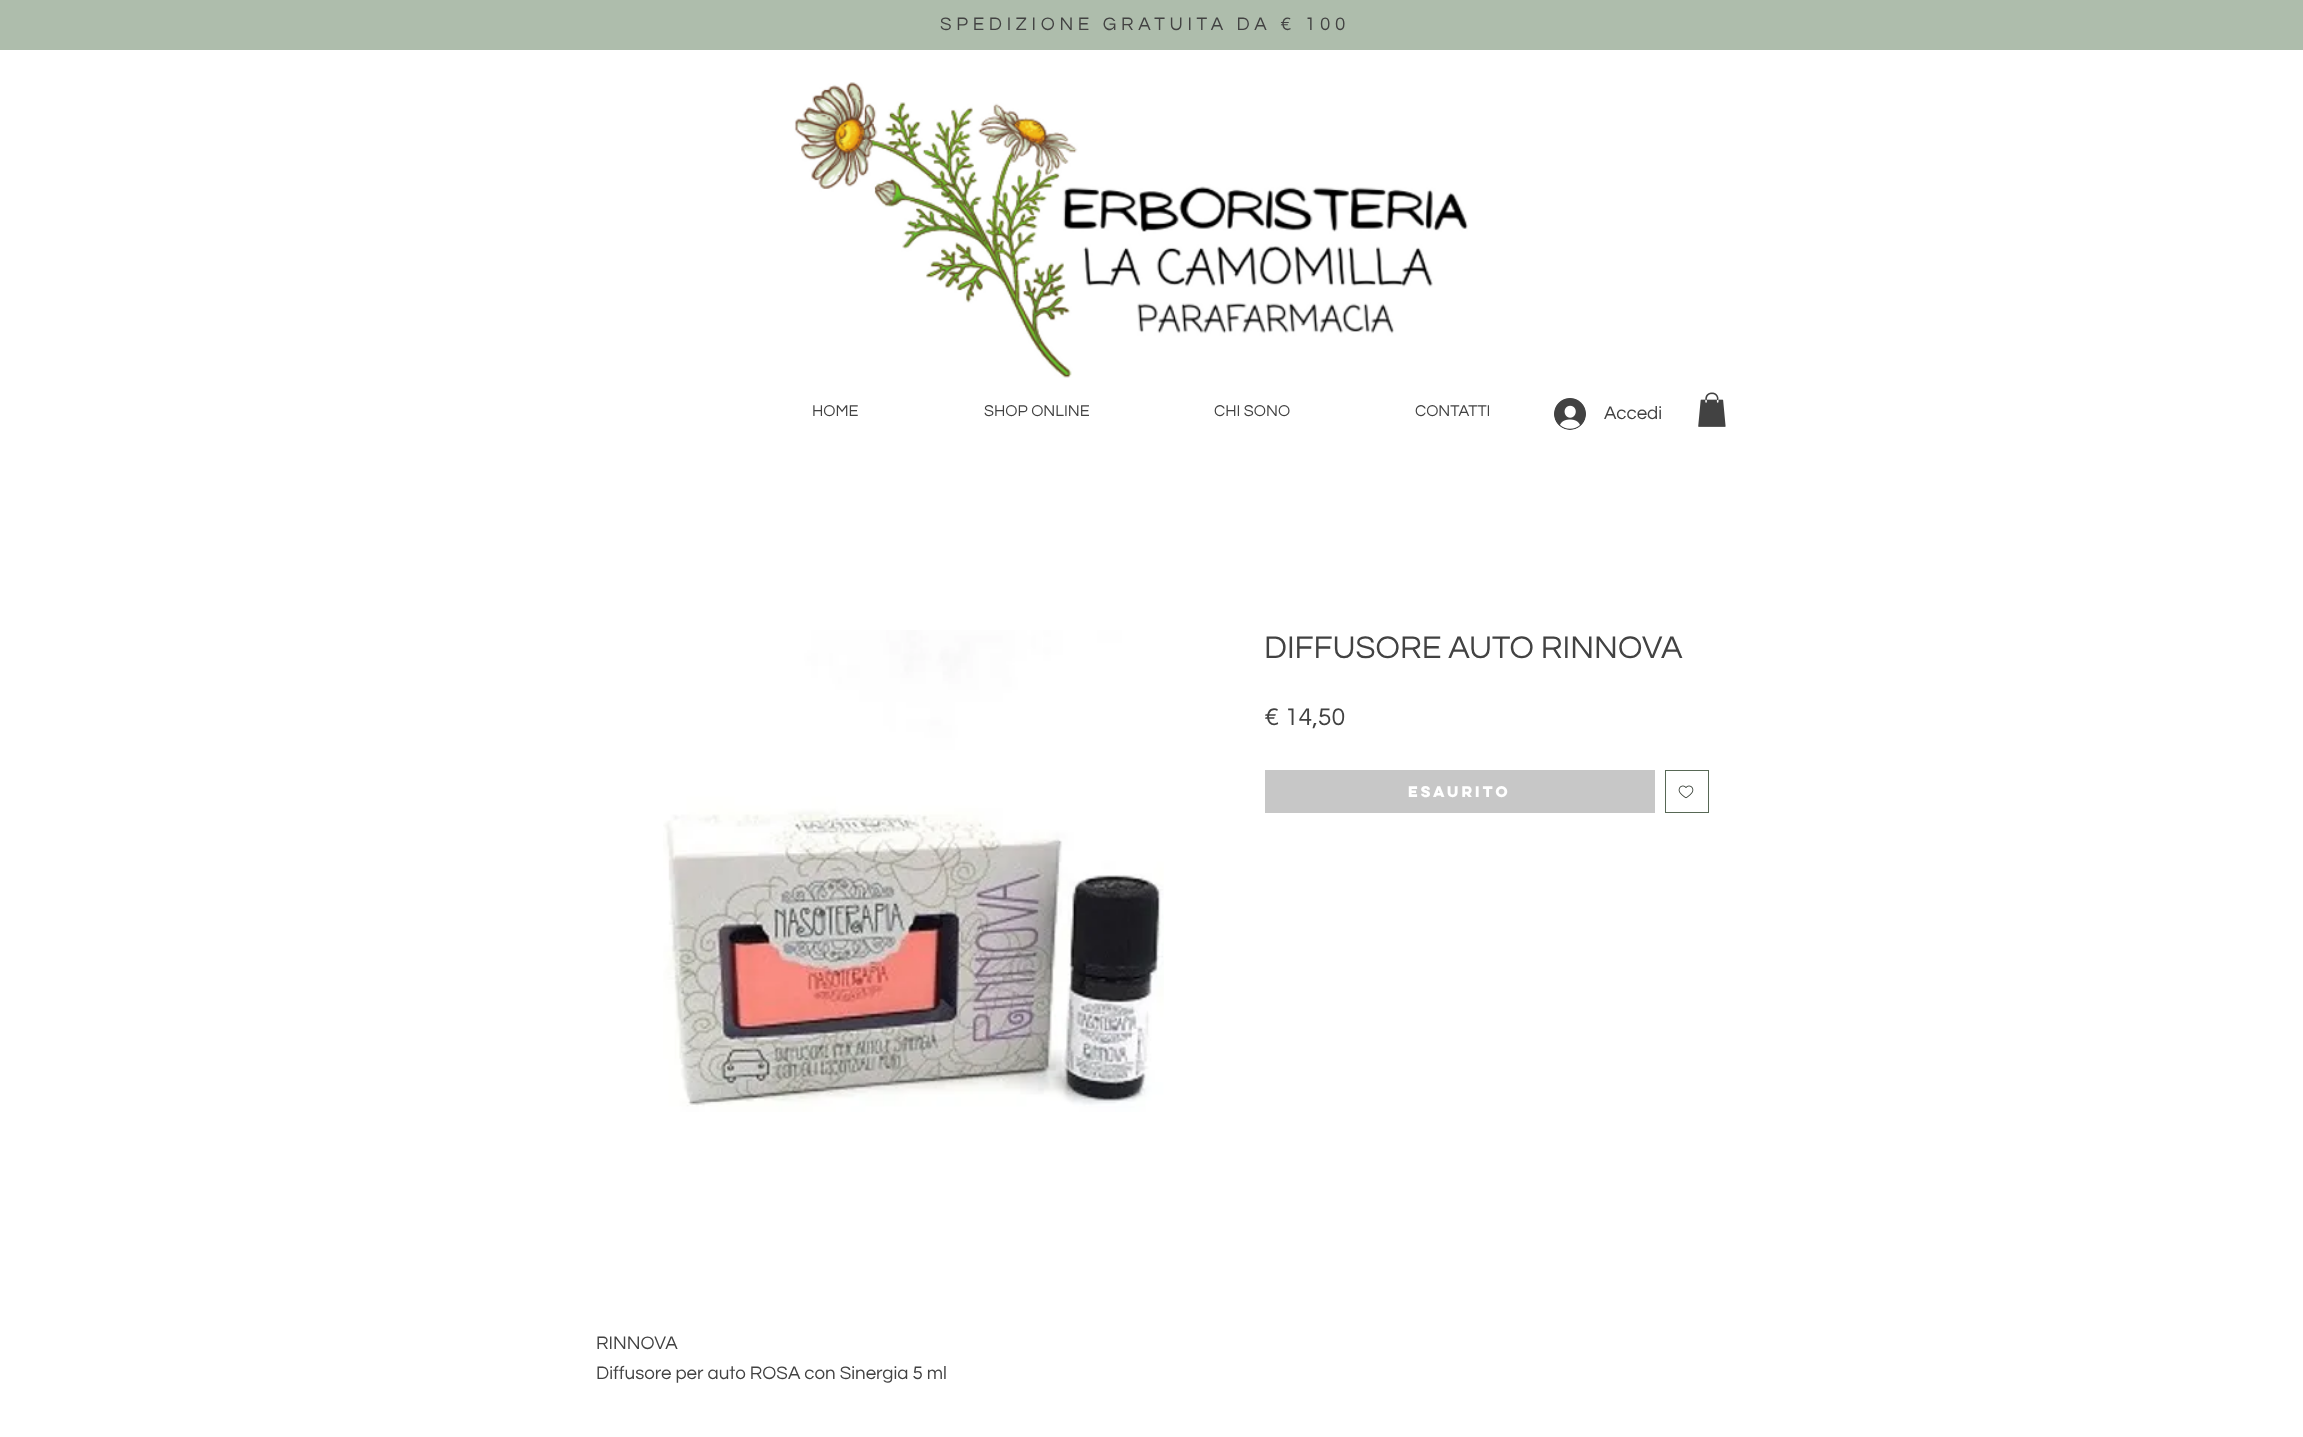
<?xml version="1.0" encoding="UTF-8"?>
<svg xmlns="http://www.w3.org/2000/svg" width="2303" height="1437">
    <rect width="100%" height="100%" fill="#FFFFFF"/>
    <rect x="0" y="0" width="2303" height="50" fill="#AEBDAC"/>
    <text x="940" y="30" font-family="Questrial" font-size="18.75" letter-spacing="4.7" fill="#424242">SPEDIZIONE GRATUITA DA € 100</text>
    <image x="794" y="82" width="674" height="296" href="img_01.png"/>
    <text x="812" y="416" font-family="Questrial" font-size="16.25" fill="#424242">HOME</text>
    <text x="984" y="416" font-family="Questrial" font-size="16.25" fill="#424242">SHOP ONLINE</text>
    <text x="1214" y="416" font-family="Questrial" font-size="16.25" fill="#424242">CHI SONO</text>
    <text x="1415" y="416" font-family="Questrial" font-size="16.25" fill="#424242">CONTATTI</text>
    <image x="1554" y="398" width="32" height="32" href="img_02.png"/>
    <text x="1604" y="419" font-family="Questrial" font-size="18.75" fill="#424242">Accedi</text>
    <image x="1698" y="392" width="28" height="35" href="img_03.png"/>
    <text x="1264" y="658" font-family="Questrial" font-size="32.5" fill="#424242">DIFFUSORE AUTO RINNOVA</text>
    <text x="1264" y="725" font-family="Questrial" font-size="25" fill="#424242">€ 14,50</text>
    <rect x="1265" y="770" width="390" height="43" fill="#C7C7C7"/>
    <text x="1408" y="797" font-family="'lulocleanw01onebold'" font-size="13.75" font-weight="700" fill="#FFFFFF">Esaurito</text>
    <rect x="1665.5" y="770.5" width="43" height="42" fill="none" stroke="#576855"/>
    <image x="1678" y="785" width="16" height="14" href="img_04.png"/>
    <image x="663" y="630" width="501" height="482" href="img_05.png"/>
    <text font-family="Questrial" font-size="18.75" fill="#424242">
        <tspan x="596" y="1349">RINNOVA</tspan>
        <tspan x="596" y="1379">Diffusore per auto ROSA con Sinergia 5 ml</tspan>
    </text>
</svg>
